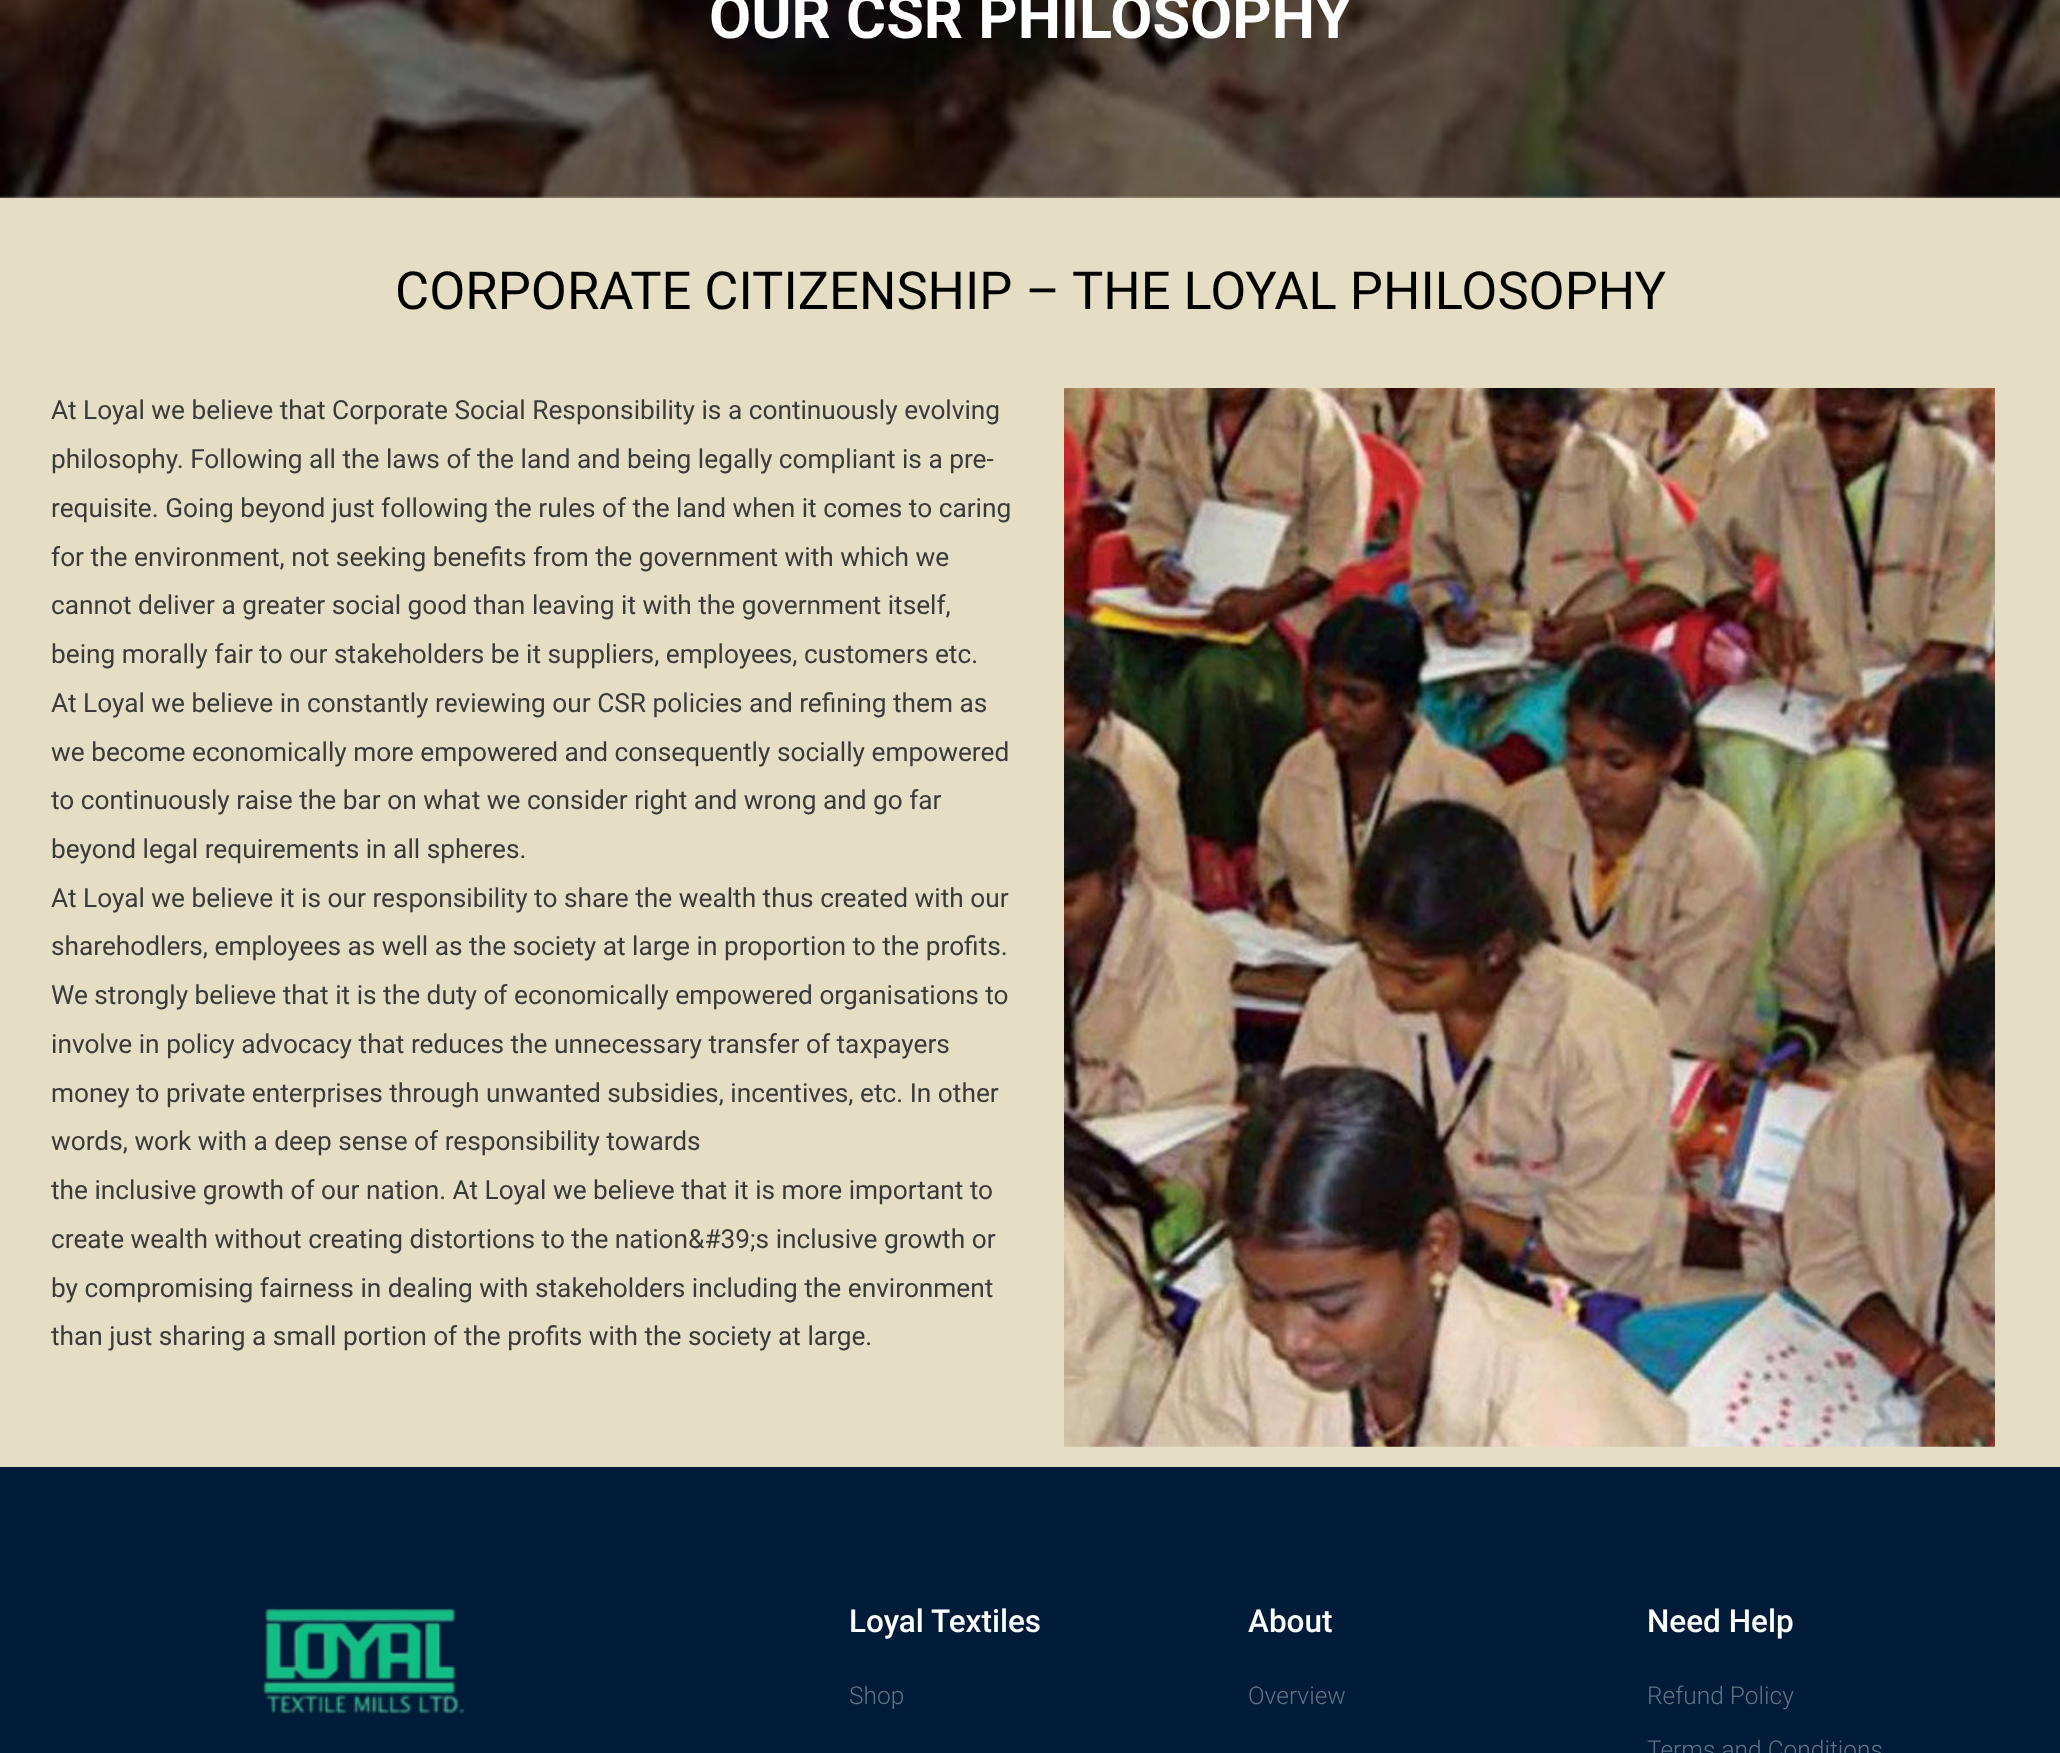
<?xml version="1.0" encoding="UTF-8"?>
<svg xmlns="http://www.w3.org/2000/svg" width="2060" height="1753">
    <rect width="100%" height="100%" fill="#E6DDC5"/>
    <image x="0" y="0" width="2060" height="198" href="img_01.png"/>
    <text x="709" y="38" font-family="Roboto" font-size="61.25" font-weight="700" fill="#FFFFFF">OUR CSR PHILOSOPHY</text>
    <text x="395" y="309" font-family="Roboto" font-size="52.5" fill="#000000">CORPORATE CITIZENSHIP – THE LOYAL PHILOSOPHY</text>
    <text font-family="Roboto" font-size="26.25" fill="#3A3A3A">
        <tspan x="51" y="419">At Loyal we believe that Corporate Social Responsibility is a continuously evolving</tspan>
        <tspan x="51" y="468">philosophy. Following all the laws of the land and being legally compliant is a pre-</tspan>
        <tspan x="51" y="517">requisite. Going beyond just following the rules of the land when it comes to caring</tspan>
        <tspan x="51" y="566">for the environment, not seeking benefits from the government with which we</tspan>
        <tspan x="51" y="614">cannot deliver a greater social good than leaving it with the government itself,</tspan>
        <tspan x="51" y="663">being morally fair to our stakeholders be it suppliers, employees, customers etc.</tspan>
        <tspan x="51" y="712">At Loyal we believe in constantly reviewing our CSR policies and refining them as</tspan>
        <tspan x="51" y="761">we become economically more empowered and consequently socially empowered</tspan>
        <tspan x="51" y="809">to continuously raise the bar on what we consider right and wrong and go far</tspan>
        <tspan x="51" y="858">beyond legal requirements in all spheres.</tspan>
        <tspan x="51" y="907">At Loyal we believe it is our responsibility to share the wealth thus created with our</tspan>
        <tspan x="51" y="955">sharehodlers, employees as well as the society at large in proportion to the profits.</tspan>
        <tspan x="51" y="1004">We strongly believe that it is the duty of economically empowered organisations to</tspan>
        <tspan x="51" y="1053">involve in policy advocacy that reduces the unnecessary transfer of taxpayers</tspan>
        <tspan x="51" y="1102">money to private enterprises through unwanted subsidies, incentives, etc. In other</tspan>
        <tspan x="51" y="1150">words, work with a deep sense of responsibility towards</tspan>
        <tspan x="51" y="1199">the inclusive growth of our nation. At Loyal we believe that it is more important to</tspan>
        <tspan x="51" y="1248">create wealth without creating distortions to the nation&amp;#39;s inclusive growth or</tspan>
        <tspan x="51" y="1297">by compromising fairness in dealing with stakeholders including the environment</tspan>
        <tspan x="51" y="1345">than just sharing a small portion of the profits with the society at large.</tspan>
    </text>
    <image x="1064" y="388" width="931" height="1059" href="img_02.png"/>
    <rect x="0" y="1467" width="2060" height="286" fill="#001C38"/>
    <image x="262" y="1607" width="203" height="107" href="img_03.png"/>
    <text x="849" y="1632" font-family="Roboto" font-size="31.5" font-weight="500" fill="#FFFFFF">Loyal Textiles</text>
    <text x="849" y="1704" font-family="Roboto" font-size="24.5" font-weight="300" fill="#617284">Shop</text>
    <text x="1248" y="1632" font-family="Roboto" font-size="31.5" font-weight="500" fill="#FFFFFF">About</text>
    <text x="1248" y="1704" font-family="Roboto" font-size="24.5" font-weight="300" fill="#617284">Overview</text>
    <text x="1647" y="1632" font-family="Roboto" font-size="31.5" font-weight="500" fill="#FFFFFF">Need Help</text>
    <text x="1647" y="1704" font-family="Roboto" font-size="24.5" font-weight="300" fill="#617284">Refund Policy</text>
    <text x="1647" y="1758" font-family="Roboto" font-size="24.5" font-weight="300" fill="#617284">Terms and Conditions</text>
</svg>
